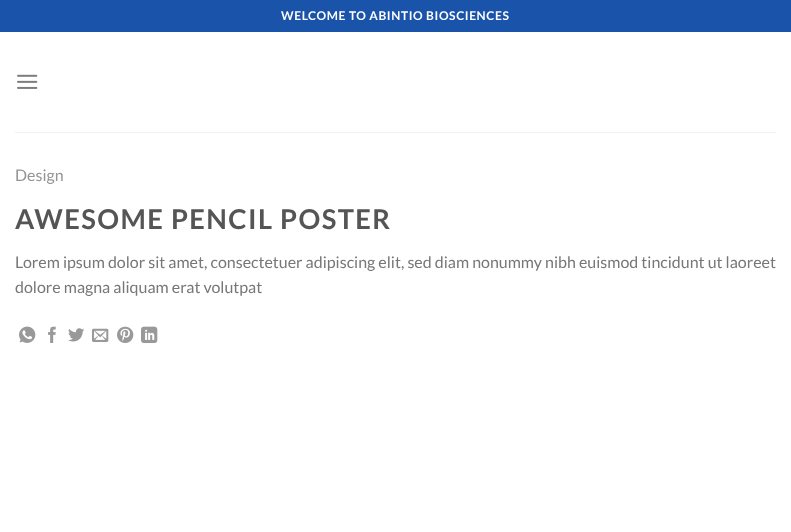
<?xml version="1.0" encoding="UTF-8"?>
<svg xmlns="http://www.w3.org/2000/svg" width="791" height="532">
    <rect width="100%" height="100%" fill="#FFFFFF"/>
    <rect x="0" y="0" width="791" height="32" fill="#1953AA"/>
    <text x="281" y="20" font-family="Lato" font-size="12" font-weight="700" letter-spacing="0.6" fill="#FFFFFF">WELCOME TO ABINTIO BIOSCIENCES</text>
    <image x="17" y="74" width="21" height="15" href="img_01.png"/>
    <rect x="15" y="132" width="761" height="1" fill="#F1F1F1"/>
    <text x="15" y="181" font-family="Lato" font-size="16" fill="#949494">Design</text>
    <text x="15" y="229" font-family="Lato" font-size="27.25" font-weight="700" letter-spacing="1.4" fill="#555555">AWESOME PENCIL POSTER</text>
    <text font-family="Lato" font-size="16" fill="#777777">
        <tspan x="15" y="268">Lorem ipsum dolor sit amet, consectetuer adipiscing elit, sed diam nonummy nibh euismod tincidunt ut laoreet</tspan>
        <tspan x="15" y="293">dolore magna aliquam erat volutpat</tspan>
    </text>
    <image x="19" y="326" width="17" height="17" href="img_02.png"/>
    <image x="48" y="326" width="8" height="17" href="img_03.png"/>
    <image x="68" y="328" width="16" height="14" href="img_04.png"/>
    <image x="92" y="328" width="17" height="14" href="img_05.png"/>
    <image x="117" y="326" width="17" height="17" href="img_06.png"/>
    <image x="141" y="326" width="17" height="17" href="img_07.png"/>
</svg>
